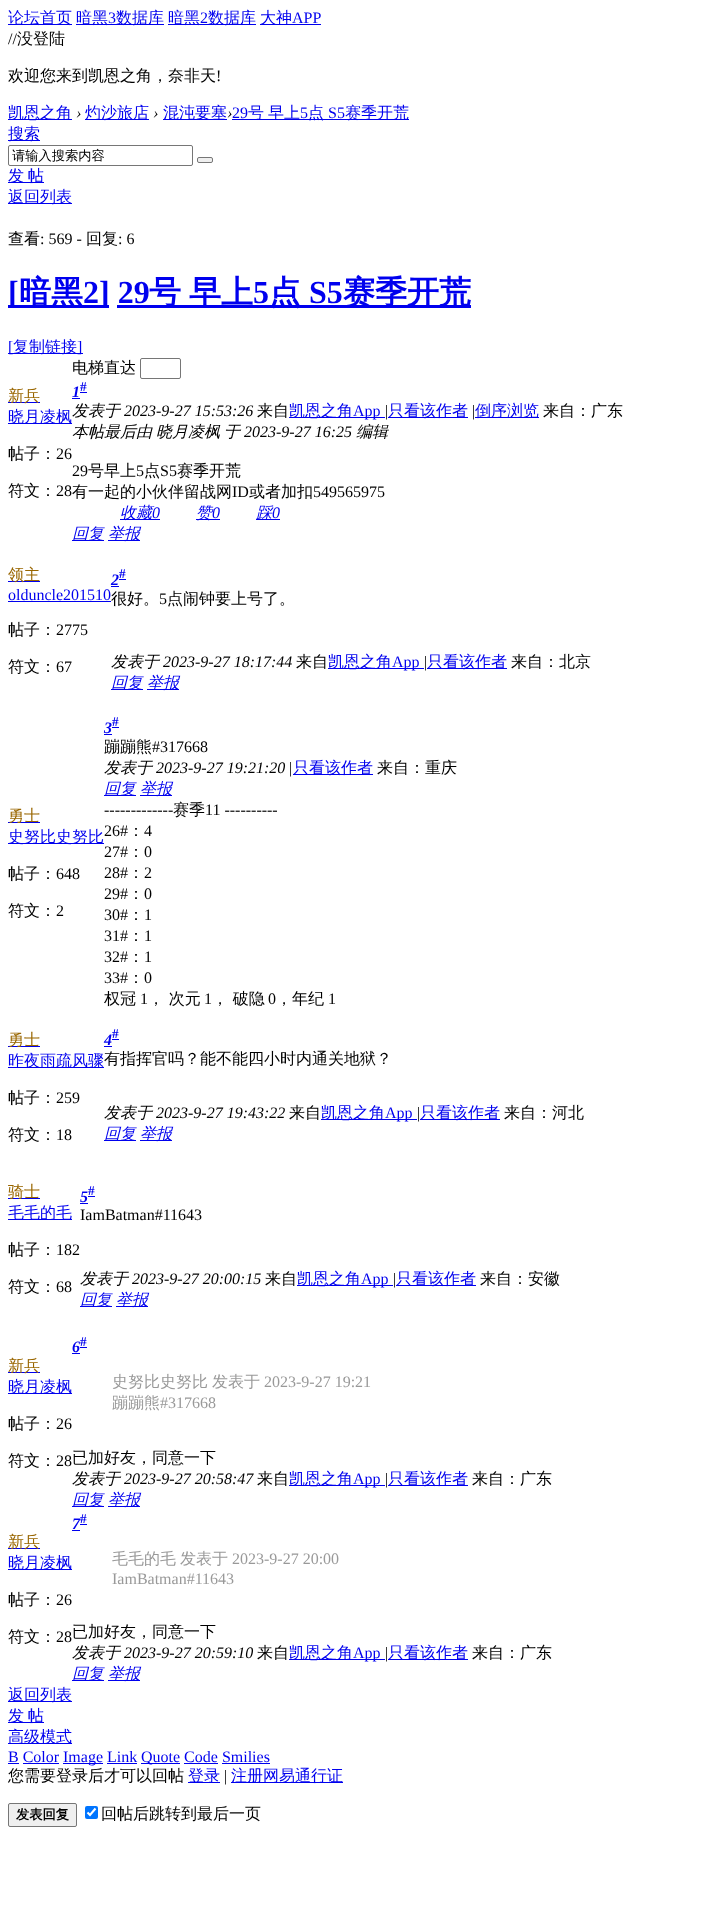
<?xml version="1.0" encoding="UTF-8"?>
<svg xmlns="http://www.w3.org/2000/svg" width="701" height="1907">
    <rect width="100%" height="100%" fill="#FFFFFF"/>
    <rect x="8" y="24" width="64" height="1" fill="#0000EE"/>
    <text x="8" y="23" font-family="WenQuanYi Zen Hei" font-size="16" font-weight="500" fill="#0000EE">论坛首页</text>
    <rect x="76" y="24" width="88" height="1" fill="#0000EE"/>
    <text x="76" y="23" font-family="WenQuanYi Zen Hei" font-size="16" font-weight="500" fill="#0000EE">暗黑</text>
    <text x="108" y="23" font-family="Liberation Serif" font-size="16" fill="#0000EE">3</text>
    <text x="116" y="23" font-family="WenQuanYi Zen Hei" font-size="16" font-weight="500" fill="#0000EE">数据库</text>
    <rect x="168" y="24" width="88" height="1" fill="#0000EE"/>
    <text x="168" y="23" font-family="WenQuanYi Zen Hei" font-size="16" font-weight="500" fill="#0000EE">暗黑</text>
    <text x="200" y="23" font-family="Liberation Serif" font-size="16" fill="#0000EE">2</text>
    <text x="208" y="23" font-family="WenQuanYi Zen Hei" font-size="16" font-weight="500" fill="#0000EE">数据库</text>
    <rect x="260" y="24" width="61" height="1" fill="#0000EE"/>
    <text x="260" y="23" font-family="WenQuanYi Zen Hei" font-size="16" font-weight="500" fill="#0000EE">大神</text>
    <text x="292" y="23" font-family="Liberation Serif" font-size="16" fill="#0000EE">APP</text>
    <text x="8" y="44" font-family="Liberation Serif" font-size="16" fill="#000000">//</text>
    <text x="17" y="44" font-family="WenQuanYi Zen Hei" font-size="16" font-weight="500" fill="#000000">没登陆</text>
    <text x="8" y="81" font-family="WenQuanYi Zen Hei" font-size="16" font-weight="500" fill="#000000">欢迎您来到凯恩之角，奈非天</text>
    <text x="216" y="81" font-family="Liberation Serif" font-size="16" fill="#000000">!</text>
    <rect x="8" y="119" width="64" height="1" fill="#0000EE"/>
    <text x="8" y="118" font-family="WenQuanYi Zen Hei" font-size="16" font-weight="500" fill="#0000EE">凯恩之角</text>
    <text x="76" y="118" font-family="Liberation Serif" font-size="16" font-style="italic" fill="#000000">›</text>
    <rect x="85" y="119" width="64" height="1" fill="#0000EE"/>
    <text x="85" y="118" font-family="WenQuanYi Zen Hei" font-size="16" font-weight="500" fill="#0000EE">灼沙旅店</text>
    <text x="153" y="118" font-family="Liberation Serif" font-size="16" font-style="italic" fill="#000000">›</text>
    <rect x="163" y="119" width="64" height="1" fill="#0000EE"/>
    <text x="163" y="118" font-family="WenQuanYi Zen Hei" font-size="16" font-weight="500" fill="#0000EE">混沌要塞</text>
    <text x="227" y="118" font-family="Liberation Serif" font-size="16" font-style="italic" fill="#000000">›</text>
    <text x="232" y="118" font-family="Liberation Serif" font-size="16" fill="#0000EE">29</text>
    <rect x="232" y="119" width="177" height="1" fill="#0000EE"/>
    <text x="248" y="118" font-family="WenQuanYi Zen Hei" font-size="16" font-weight="500" fill="#0000EE">号</text>
    <text x="268" y="118" font-family="WenQuanYi Zen Hei" font-size="16" font-weight="500" fill="#0000EE">早上</text>
    <text x="300" y="118" font-family="Liberation Serif" font-size="16" fill="#0000EE">5</text>
    <text x="308" y="118" font-family="WenQuanYi Zen Hei" font-size="16" font-weight="500" fill="#0000EE">点</text>
    <text x="328" y="118" font-family="Liberation Serif" font-size="16" fill="#0000EE">S5</text>
    <text x="345" y="118" font-family="WenQuanYi Zen Hei" font-size="16" font-weight="500" fill="#0000EE">赛季开荒</text>
    <rect x="8" y="140" width="32" height="1" fill="#0000EE"/>
    <text x="8" y="139" font-family="WenQuanYi Zen Hei" font-size="16" font-weight="500" fill="#0000EE">搜索</text>
    <rect x="8.5" y="145.5" width="184" height="20" rx="1.5" fill="none" stroke="#767676"/>
    <text x="12" y="160" font-family="WenQuanYi Zen Hei" font-size="13.25" font-weight="500" fill="#000000">请输入搜索内容</text>
    <rect x="197.5" y="157.5" width="15" height="5" rx="1.5" fill="#EFEFEF" stroke="#767676"/>
    <rect x="8" y="182" width="36" height="1" fill="#0000EE"/>
    <text x="8" y="181" word-spacing="-1" font-family="WenQuanYi Zen Hei" font-size="16" font-weight="500" fill="#0000EE">发 帖</text>
    <rect x="8" y="203" width="64" height="1" fill="#0000EE"/>
    <text x="8" y="202" font-family="WenQuanYi Zen Hei" font-size="16" font-weight="500" fill="#0000EE">返回列表</text>
    <text x="8" y="244" font-family="WenQuanYi Zen Hei" font-size="16" font-weight="500" fill="#000000">查看</text>
    <text x="40" y="244" font-family="Liberation Serif" font-size="16" fill="#000000">: 569 -</text>
    <text x="86" y="244" font-family="WenQuanYi Zen Hei" font-size="16" font-weight="500" fill="#000000">回复</text>
    <text x="118" y="244" font-family="Liberation Serif" font-size="16" fill="#000000">: 6</text>
    <rect x="8" y="305" width="101" height="3" fill="#0000EE"/>
    <text x="8" y="303" font-family="Liberation Serif" font-size="32" font-weight="700" fill="#0000EE">[</text>
    <text x="19" y="303" font-family="WenQuanYi Zen Hei" font-size="32" font-weight="700" fill="#0000EE">暗黑</text>
    <text x="83" y="303" font-family="Liberation Serif" font-size="32" font-weight="700" fill="#0000EE">2] 29</text>
    <rect x="117" y="305" width="354" height="3" fill="#0000EE"/>
    <text x="149" y="303" font-family="WenQuanYi Zen Hei" font-size="32" font-weight="700" fill="#0000EE">号</text>
    <text x="189" y="303" font-family="WenQuanYi Zen Hei" font-size="32" font-weight="700" fill="#0000EE">早上</text>
    <text x="253" y="303" font-family="Liberation Serif" font-size="32" font-weight="700" fill="#0000EE">5</text>
    <text x="269" y="303" font-family="WenQuanYi Zen Hei" font-size="32" font-weight="700" fill="#0000EE">点</text>
    <text x="309" y="303" font-family="Liberation Serif" font-size="32" font-weight="700" fill="#0000EE">S5</text>
    <text x="343" y="303" font-family="WenQuanYi Zen Hei" font-size="32" font-weight="700" fill="#0000EE">赛季开荒</text>
    <rect x="8" y="353" width="75" height="1" fill="#0000EE"/>
    <text x="8" y="352" font-family="Liberation Serif" font-size="16" fill="#0000EE">[</text>
    <text x="13" y="352" font-family="WenQuanYi Zen Hei" font-size="16" font-weight="500" fill="#0000EE">复制链接</text>
    <text x="77" y="352" font-family="Liberation Serif" font-size="16" fill="#0000EE">]</text>
    <rect x="8" y="402" width="32" height="1" fill="#0000EE"/>
    <text x="8" y="401" font-family="WenQuanYi Zen Hei" font-size="16" font-weight="500" fill="#996600">新兵</text>
    <rect x="8" y="423" width="64" height="1" fill="#0000EE"/>
    <text x="8" y="422" font-family="WenQuanYi Zen Hei" font-size="16" font-weight="500" fill="#0000EE">晓月凌枫</text>
    <text x="8" y="459" font-family="WenQuanYi Zen Hei" font-size="16" font-weight="500" fill="#000000">帖子：</text>
    <text x="56" y="459" font-family="Liberation Serif" font-size="16" fill="#000000">26</text>
    <text x="8" y="496" font-family="WenQuanYi Zen Hei" font-size="16" font-weight="500" fill="#000000">符文：</text>
    <text x="56" y="496" font-family="Liberation Serif" font-size="16" fill="#000000">28</text>
    <text x="72" y="373" font-family="WenQuanYi Zen Hei" font-size="16" font-weight="500" fill="#000000">电梯直达</text>
    <rect x="140.5" y="358.5" width="40" height="20" rx="1.5" fill="none" stroke="#767676"/>
    <text x="72" y="397" font-family="Liberation Serif" font-size="16" font-weight="700" font-style="italic" fill="#0000EE">1</text>
    <rect x="72" y="398" width="8" height="1" fill="#0000EE"/>
    <rect x="80" y="392" width="7" height="1" fill="#0000EE"/>
    <text x="80" y="391" font-family="Liberation Serif" font-size="13.25" font-weight="700" fill="#0000EE">#</text>
    <text x="72" y="416" font-family="WenQuanYi Zen Hei" font-size="16" font-weight="500" font-style="italic" fill="#000000">发表于</text>
    <text x="124" y="416" font-family="Liberation Serif" font-size="16" font-style="italic" fill="#000000">2023-9-27 15:53:26</text>
    <text x="257" y="416" font-family="WenQuanYi Zen Hei" font-size="16" font-weight="500" fill="#000000">来自</text>
    <rect x="289" y="417" width="96" height="1" fill="#0000EE"/>
    <text x="289" y="416" font-family="WenQuanYi Zen Hei" font-size="16" font-weight="500" fill="#0000EE">凯恩之角</text>
    <text x="353" y="416" font-family="Liberation Serif" font-size="16" fill="#0000EE">App</text>
    <text x="385" y="416" font-family="Liberation Serif" font-size="16" fill="#000000">|</text>
    <rect x="388" y="417" width="80" height="1" fill="#0000EE"/>
    <text x="388" y="416" font-family="WenQuanYi Zen Hei" font-size="16" font-weight="500" fill="#0000EE">只看该作者</text>
    <text x="472" y="416" font-family="Liberation Serif" font-size="16" fill="#000000">|</text>
    <rect x="475" y="417" width="64" height="1" fill="#0000EE"/>
    <text x="475" y="416" font-family="WenQuanYi Zen Hei" font-size="16" font-weight="500" fill="#0000EE">倒序浏览</text>
    <text x="543" y="416" font-family="WenQuanYi Zen Hei" font-size="16" font-weight="500" fill="#000000">来自：广东</text>
    <text x="72" y="437" font-family="WenQuanYi Zen Hei" font-size="16" font-weight="500" font-style="italic" fill="#000000">本帖最后由</text>
    <text x="156" y="437" font-family="WenQuanYi Zen Hei" font-size="16" font-weight="500" font-style="italic" fill="#000000">晓月凌枫</text>
    <text x="224" y="437" font-family="WenQuanYi Zen Hei" font-size="16" font-weight="500" font-style="italic" fill="#000000">于</text>
    <text x="244" y="437" font-family="Liberation Serif" font-size="16" font-style="italic" fill="#000000">2023-9-27 16:25</text>
    <text x="356" y="437" font-family="WenQuanYi Zen Hei" font-size="16" font-weight="500" font-style="italic" fill="#000000">编辑</text>
    <text x="72" y="476" font-family="Liberation Serif" font-size="16" fill="#000000">29</text>
    <text x="88" y="476" font-family="WenQuanYi Zen Hei" font-size="16" font-weight="500" fill="#000000">号早上</text>
    <text x="136" y="476" font-family="Liberation Serif" font-size="16" fill="#000000">5</text>
    <text x="144" y="476" font-family="WenQuanYi Zen Hei" font-size="16" font-weight="500" fill="#000000">点</text>
    <text x="160" y="476" font-family="Liberation Serif" font-size="16" fill="#000000">S5</text>
    <text x="177" y="476" font-family="WenQuanYi Zen Hei" font-size="16" font-weight="500" fill="#000000">赛季开荒</text>
    <text x="72" y="497" font-family="WenQuanYi Zen Hei" font-size="16" font-weight="500" fill="#000000">有一起的小伙伴留战网</text>
    <text x="232" y="497" font-family="Liberation Serif" font-size="16" fill="#000000">ID</text>
    <text x="249" y="497" font-family="WenQuanYi Zen Hei" font-size="16" font-weight="500" fill="#000000">或者加扣</text>
    <text x="313" y="497" font-family="Liberation Serif" font-size="16" fill="#000000">549565975</text>
    <rect x="120" y="519" width="32" height="1" fill="#0000EE"/>
    <text x="120" y="518" font-family="WenQuanYi Zen Hei" font-size="16" font-weight="500" font-style="italic" fill="#0000EE">收藏</text>
    <text x="152" y="518" font-family="Liberation Serif" font-size="16" font-style="italic" fill="#0000EE">0</text>
    <rect x="152" y="519" width="8" height="1" fill="#0000EE"/>
    <rect x="196" y="519" width="16" height="1" fill="#0000EE"/>
    <text x="196" y="518" font-family="WenQuanYi Zen Hei" font-size="16" font-weight="500" font-style="italic" fill="#0000EE">赞</text>
    <rect x="212" y="519" width="8" height="1" fill="#0000EE"/>
    <text x="212" y="518" font-family="Liberation Serif" font-size="16" font-style="italic" fill="#0000EE">0</text>
    <rect x="256" y="519" width="16" height="1" fill="#0000EE"/>
    <text x="256" y="518" font-family="WenQuanYi Zen Hei" font-size="16" font-weight="500" font-style="italic" fill="#0000EE">踩</text>
    <text x="272" y="518" font-family="Liberation Serif" font-size="16" font-style="italic" fill="#0000EE">0</text>
    <rect x="272" y="519" width="8" height="1" fill="#0000EE"/>
    <rect x="72" y="540" width="32" height="1" fill="#0000EE"/>
    <text x="72" y="539" font-family="WenQuanYi Zen Hei" font-size="16" font-weight="500" font-style="italic" fill="#0000EE">回复</text>
    <rect x="108" y="540" width="32" height="1" fill="#0000EE"/>
    <text x="108" y="539" font-family="WenQuanYi Zen Hei" font-size="16" font-weight="500" font-style="italic" fill="#0000EE">举报</text>
    <rect x="8" y="581" width="32" height="1" fill="#0000EE"/>
    <text x="8" y="580" font-family="WenQuanYi Zen Hei" font-size="16" font-weight="500" fill="#996600">领主</text>
    <text x="8" y="600" font-family="Liberation Serif" font-size="16" fill="#0000EE">olduncle201510</text>
    <rect x="8" y="601" width="103" height="1" fill="#0000EE"/>
    <text x="8" y="635" font-family="WenQuanYi Zen Hei" font-size="16" font-weight="500" fill="#000000">帖子：</text>
    <text x="56" y="635" font-family="Liberation Serif" font-size="16" fill="#000000">2775</text>
    <text x="8" y="672" font-family="WenQuanYi Zen Hei" font-size="16" font-weight="500" fill="#000000">符文：</text>
    <text x="56" y="672" font-family="Liberation Serif" font-size="16" fill="#000000">67</text>
    <text x="111" y="585" font-family="Liberation Serif" font-size="16" font-weight="700" font-style="italic" fill="#0000EE">2</text>
    <rect x="111" y="586" width="8" height="1" fill="#0000EE"/>
    <rect x="119" y="579" width="7" height="1" fill="#0000EE"/>
    <text x="119" y="578" font-family="Liberation Serif" font-size="13.25" font-weight="700" fill="#0000EE">#</text>
    <text x="111" y="604" font-family="WenQuanYi Zen Hei" font-size="16" font-weight="500" fill="#000000">很好。</text>
    <text x="159" y="604" font-family="Liberation Serif" font-size="16" fill="#000000">5</text>
    <text x="167" y="604" font-family="WenQuanYi Zen Hei" font-size="16" font-weight="500" fill="#000000">点闹钟要上号了。</text>
    <text x="111" y="667" font-family="WenQuanYi Zen Hei" font-size="16" font-weight="500" font-style="italic" fill="#000000">发表于</text>
    <text x="163" y="667" font-family="Liberation Serif" font-size="16" font-style="italic" fill="#000000">2023-9-27 18:17:44</text>
    <text x="296" y="667" font-family="WenQuanYi Zen Hei" font-size="16" font-weight="500" fill="#000000">来自</text>
    <rect x="328" y="668" width="96" height="1" fill="#0000EE"/>
    <text x="328" y="667" font-family="WenQuanYi Zen Hei" font-size="16" font-weight="500" fill="#0000EE">凯恩之角</text>
    <text x="392" y="667" font-family="Liberation Serif" font-size="16" fill="#0000EE">App</text>
    <text x="424" y="667" font-family="Liberation Serif" font-size="16" fill="#000000">|</text>
    <rect x="427" y="668" width="80" height="1" fill="#0000EE"/>
    <text x="427" y="667" font-family="WenQuanYi Zen Hei" font-size="16" font-weight="500" fill="#0000EE">只看该作者</text>
    <text x="511" y="667" font-family="WenQuanYi Zen Hei" font-size="16" font-weight="500" fill="#000000">来自：北京</text>
    <rect x="111" y="689" width="32" height="1" fill="#0000EE"/>
    <text x="111" y="688" font-family="WenQuanYi Zen Hei" font-size="16" font-weight="500" font-style="italic" fill="#0000EE">回复</text>
    <rect x="147" y="689" width="32" height="1" fill="#0000EE"/>
    <text x="147" y="688" font-family="WenQuanYi Zen Hei" font-size="16" font-weight="500" font-style="italic" fill="#0000EE">举报</text>
    <text x="104" y="733" font-family="Liberation Serif" font-size="16" font-weight="700" font-style="italic" fill="#0000EE">3</text>
    <rect x="104" y="734" width="8" height="1" fill="#0000EE"/>
    <rect x="112" y="727" width="7" height="1" fill="#0000EE"/>
    <text x="112" y="726" font-family="Liberation Serif" font-size="13.25" font-weight="700" fill="#0000EE">#</text>
    <text x="104" y="752" font-family="WenQuanYi Zen Hei" font-size="16" font-weight="500" fill="#000000">蹦蹦熊</text>
    <text x="152" y="752" font-family="Liberation Serif" font-size="16" fill="#000000">#317668</text>
    <rect x="8" y="822" width="32" height="1" fill="#0000EE"/>
    <text x="8" y="821" font-family="WenQuanYi Zen Hei" font-size="16" font-weight="500" fill="#996600">勇士</text>
    <rect x="8" y="843" width="96" height="1" fill="#0000EE"/>
    <text x="8" y="842" font-family="WenQuanYi Zen Hei" font-size="16" font-weight="500" fill="#0000EE">史努比史努比</text>
    <text x="8" y="879" font-family="WenQuanYi Zen Hei" font-size="16" font-weight="500" fill="#000000">帖子：</text>
    <text x="56" y="879" font-family="Liberation Serif" font-size="16" fill="#000000">648</text>
    <text x="8" y="916" font-family="WenQuanYi Zen Hei" font-size="16" font-weight="500" fill="#000000">符文：</text>
    <text x="56" y="916" font-family="Liberation Serif" font-size="16" fill="#000000">2</text>
    <text x="104" y="773" font-family="WenQuanYi Zen Hei" font-size="16" font-weight="500" font-style="italic" fill="#000000">发表于</text>
    <text x="156" y="773" font-family="Liberation Serif" font-size="16" font-style="italic" fill="#000000">2023-9-27 19:21:20</text>
    <text x="289" y="773" font-family="Liberation Serif" font-size="16" fill="#000000">|</text>
    <rect x="293" y="774" width="80" height="1" fill="#0000EE"/>
    <text x="293" y="773" font-family="WenQuanYi Zen Hei" font-size="16" font-weight="500" fill="#0000EE">只看该作者</text>
    <text x="377" y="773" font-family="WenQuanYi Zen Hei" font-size="16" font-weight="500" fill="#000000">来自：重庆</text>
    <rect x="104" y="795" width="32" height="1" fill="#0000EE"/>
    <text x="104" y="794" font-family="WenQuanYi Zen Hei" font-size="16" font-weight="500" font-style="italic" fill="#0000EE">回复</text>
    <rect x="140" y="795" width="32" height="1" fill="#0000EE"/>
    <text x="140" y="794" font-family="WenQuanYi Zen Hei" font-size="16" font-weight="500" font-style="italic" fill="#0000EE">举报</text>
    <text x="104" y="815" font-family="Liberation Serif" font-size="16" fill="#000000">-------------</text>
    <text x="173" y="815" font-family="WenQuanYi Zen Hei" font-size="16" font-weight="500" fill="#000000">赛季</text>
    <text x="205" y="815" font-family="Liberation Serif" font-size="16" fill="#000000">11 ----------</text>
    <text x="104" y="836" font-family="Liberation Serif" font-size="16" fill="#000000">26#</text>
    <text x="128" y="836" font-family="WenQuanYi Zen Hei" font-size="16" font-weight="500" fill="#000000">：</text>
    <text x="144" y="836" font-family="Liberation Serif" font-size="16" fill="#000000">4</text>
    <text x="104" y="857" font-family="Liberation Serif" font-size="16" fill="#000000">27#</text>
    <text x="128" y="857" font-family="WenQuanYi Zen Hei" font-size="16" font-weight="500" fill="#000000">：</text>
    <text x="144" y="857" font-family="Liberation Serif" font-size="16" fill="#000000">0</text>
    <text x="104" y="878" font-family="Liberation Serif" font-size="16" fill="#000000">28#</text>
    <text x="128" y="878" font-family="WenQuanYi Zen Hei" font-size="16" font-weight="500" fill="#000000">：</text>
    <text x="144" y="878" font-family="Liberation Serif" font-size="16" fill="#000000">2</text>
    <text x="104" y="899" font-family="Liberation Serif" font-size="16" fill="#000000">29#</text>
    <text x="128" y="899" font-family="WenQuanYi Zen Hei" font-size="16" font-weight="500" fill="#000000">：</text>
    <text x="144" y="899" font-family="Liberation Serif" font-size="16" fill="#000000">0</text>
    <text x="104" y="920" font-family="Liberation Serif" font-size="16" fill="#000000">30#</text>
    <text x="128" y="920" font-family="WenQuanYi Zen Hei" font-size="16" font-weight="500" fill="#000000">：</text>
    <text x="144" y="920" font-family="Liberation Serif" font-size="16" fill="#000000">1</text>
    <text x="104" y="941" font-family="Liberation Serif" font-size="16" fill="#000000">31#</text>
    <text x="128" y="941" font-family="WenQuanYi Zen Hei" font-size="16" font-weight="500" fill="#000000">：</text>
    <text x="144" y="941" font-family="Liberation Serif" font-size="16" fill="#000000">1</text>
    <text x="104" y="962" font-family="Liberation Serif" font-size="16" fill="#000000">32#</text>
    <text x="128" y="962" font-family="WenQuanYi Zen Hei" font-size="16" font-weight="500" fill="#000000">：</text>
    <text x="144" y="962" font-family="Liberation Serif" font-size="16" fill="#000000">1</text>
    <text x="104" y="983" font-family="Liberation Serif" font-size="16" fill="#000000">33#</text>
    <text x="128" y="983" font-family="WenQuanYi Zen Hei" font-size="16" font-weight="500" fill="#000000">：</text>
    <text x="144" y="983" font-family="Liberation Serif" font-size="16" fill="#000000">0</text>
    <text x="104" y="1004" font-family="WenQuanYi Zen Hei" font-size="16" font-weight="500" fill="#000000">权冠</text>
    <text x="140" y="1004" font-family="Liberation Serif" font-size="16" fill="#000000">1</text>
    <text x="148" y="1004" font-family="WenQuanYi Zen Hei" font-size="16" font-weight="500" fill="#000000">， 次元</text>
    <text x="204" y="1004" font-family="Liberation Serif" font-size="16" fill="#000000">1</text>
    <text x="212" y="1004" font-family="WenQuanYi Zen Hei" font-size="16" font-weight="500" fill="#000000">， 破隐</text>
    <text x="268" y="1004" font-family="Liberation Serif" font-size="16" fill="#000000">0</text>
    <text x="276" y="1004" font-family="WenQuanYi Zen Hei" font-size="16" font-weight="500" fill="#000000">，年纪</text>
    <text x="328" y="1004" font-family="Liberation Serif" font-size="16" fill="#000000">1</text>
    <rect x="8" y="1046" width="32" height="1" fill="#0000EE"/>
    <text x="8" y="1045" font-family="WenQuanYi Zen Hei" font-size="16" font-weight="500" fill="#996600">勇士</text>
    <rect x="8" y="1067" width="96" height="1" fill="#0000EE"/>
    <text x="8" y="1066" font-family="WenQuanYi Zen Hei" font-size="16" font-weight="500" fill="#0000EE">昨夜雨疏风骤</text>
    <text x="8" y="1103" font-family="WenQuanYi Zen Hei" font-size="16" font-weight="500" fill="#000000">帖子：</text>
    <text x="56" y="1103" font-family="Liberation Serif" font-size="16" fill="#000000">259</text>
    <text x="8" y="1140" font-family="WenQuanYi Zen Hei" font-size="16" font-weight="500" fill="#000000">符文：</text>
    <text x="56" y="1140" font-family="Liberation Serif" font-size="16" fill="#000000">18</text>
    <text x="104" y="1045" font-family="Liberation Serif" font-size="16" font-weight="700" font-style="italic" fill="#0000EE">4</text>
    <rect x="104" y="1046" width="8" height="1" fill="#0000EE"/>
    <rect x="112" y="1039" width="7" height="1" fill="#0000EE"/>
    <text x="112" y="1038" font-family="Liberation Serif" font-size="13.25" font-weight="700" fill="#0000EE">#</text>
    <text x="104" y="1064" font-family="WenQuanYi Zen Hei" font-size="16" font-weight="500" fill="#000000">有指挥官吗？能不能四小时内通关地狱？</text>
    <text x="104" y="1118" font-family="WenQuanYi Zen Hei" font-size="16" font-weight="500" font-style="italic" fill="#000000">发表于</text>
    <text x="156" y="1118" font-family="Liberation Serif" font-size="16" font-style="italic" fill="#000000">2023-9-27 19:43:22</text>
    <text x="289" y="1118" font-family="WenQuanYi Zen Hei" font-size="16" font-weight="500" fill="#000000">来自</text>
    <rect x="321" y="1119" width="96" height="1" fill="#0000EE"/>
    <text x="321" y="1118" font-family="WenQuanYi Zen Hei" font-size="16" font-weight="500" fill="#0000EE">凯恩之角</text>
    <text x="385" y="1118" font-family="Liberation Serif" font-size="16" fill="#0000EE">App</text>
    <text x="417" y="1118" font-family="Liberation Serif" font-size="16" fill="#000000">|</text>
    <rect x="420" y="1119" width="80" height="1" fill="#0000EE"/>
    <text x="420" y="1118" font-family="WenQuanYi Zen Hei" font-size="16" font-weight="500" fill="#0000EE">只看该作者</text>
    <text x="504" y="1118" font-family="WenQuanYi Zen Hei" font-size="16" font-weight="500" fill="#000000">来自：河北</text>
    <rect x="104" y="1140" width="32" height="1" fill="#0000EE"/>
    <text x="104" y="1139" font-family="WenQuanYi Zen Hei" font-size="16" font-weight="500" font-style="italic" fill="#0000EE">回复</text>
    <rect x="140" y="1140" width="32" height="1" fill="#0000EE"/>
    <text x="140" y="1139" font-family="WenQuanYi Zen Hei" font-size="16" font-weight="500" font-style="italic" fill="#0000EE">举报</text>
    <rect x="8" y="1198" width="32" height="1" fill="#0000EE"/>
    <text x="8" y="1197" font-family="WenQuanYi Zen Hei" font-size="16" font-weight="500" fill="#996600">骑士</text>
    <rect x="8" y="1219" width="64" height="1" fill="#0000EE"/>
    <text x="8" y="1218" font-family="WenQuanYi Zen Hei" font-size="16" font-weight="500" fill="#0000EE">毛毛的毛</text>
    <text x="8" y="1255" font-family="WenQuanYi Zen Hei" font-size="16" font-weight="500" fill="#000000">帖子：</text>
    <text x="56" y="1255" font-family="Liberation Serif" font-size="16" fill="#000000">182</text>
    <text x="8" y="1292" font-family="WenQuanYi Zen Hei" font-size="16" font-weight="500" fill="#000000">符文：</text>
    <text x="56" y="1292" font-family="Liberation Serif" font-size="16" fill="#000000">68</text>
    <text x="80" y="1202" font-family="Liberation Serif" font-size="16" font-weight="700" font-style="italic" fill="#0000EE">5</text>
    <rect x="80" y="1203" width="8" height="1" fill="#0000EE"/>
    <rect x="88" y="1196" width="7" height="1" fill="#0000EE"/>
    <text x="88" y="1195" font-family="Liberation Serif" font-size="13.25" font-weight="700" fill="#0000EE">#</text>
    <text x="80" y="1220" font-family="Liberation Serif" font-size="16" fill="#000000">IamBatman#11643</text>
    <text x="80" y="1284" font-family="WenQuanYi Zen Hei" font-size="16" font-weight="500" font-style="italic" fill="#000000">发表于</text>
    <text x="132" y="1284" font-family="Liberation Serif" font-size="16" font-style="italic" fill="#000000">2023-9-27 20:00:15</text>
    <text x="265" y="1284" font-family="WenQuanYi Zen Hei" font-size="16" font-weight="500" fill="#000000">来自</text>
    <rect x="297" y="1285" width="96" height="1" fill="#0000EE"/>
    <text x="297" y="1284" font-family="WenQuanYi Zen Hei" font-size="16" font-weight="500" fill="#0000EE">凯恩之角</text>
    <text x="361" y="1284" font-family="Liberation Serif" font-size="16" fill="#0000EE">App</text>
    <text x="393" y="1284" font-family="Liberation Serif" font-size="16" fill="#000000">|</text>
    <rect x="396" y="1285" width="80" height="1" fill="#0000EE"/>
    <text x="396" y="1284" font-family="WenQuanYi Zen Hei" font-size="16" font-weight="500" fill="#0000EE">只看该作者</text>
    <text x="480" y="1284" font-family="WenQuanYi Zen Hei" font-size="16" font-weight="500" fill="#000000">来自：安徽</text>
    <rect x="80" y="1306" width="32" height="1" fill="#0000EE"/>
    <text x="80" y="1305" font-family="WenQuanYi Zen Hei" font-size="16" font-weight="500" font-style="italic" fill="#0000EE">回复</text>
    <rect x="116" y="1306" width="32" height="1" fill="#0000EE"/>
    <text x="116" y="1305" font-family="WenQuanYi Zen Hei" font-size="16" font-weight="500" font-style="italic" fill="#0000EE">举报</text>
    <rect x="8" y="1372" width="32" height="1" fill="#0000EE"/>
    <text x="8" y="1371" font-family="WenQuanYi Zen Hei" font-size="16" font-weight="500" fill="#996600">新兵</text>
    <rect x="8" y="1393" width="64" height="1" fill="#0000EE"/>
    <text x="8" y="1392" font-family="WenQuanYi Zen Hei" font-size="16" font-weight="500" fill="#0000EE">晓月凌枫</text>
    <text x="8" y="1429" font-family="WenQuanYi Zen Hei" font-size="16" font-weight="500" fill="#000000">帖子：</text>
    <text x="56" y="1429" font-family="Liberation Serif" font-size="16" fill="#000000">26</text>
    <text x="8" y="1466" font-family="WenQuanYi Zen Hei" font-size="16" font-weight="500" fill="#000000">符文：</text>
    <text x="56" y="1466" font-family="Liberation Serif" font-size="16" fill="#000000">28</text>
    <text x="72" y="1352" font-family="Liberation Serif" font-size="16" font-weight="700" font-style="italic" fill="#0000EE">6</text>
    <rect x="72" y="1353" width="8" height="1" fill="#0000EE"/>
    <rect x="80" y="1347" width="7" height="1" fill="#0000EE"/>
    <text x="80" y="1346" font-family="Liberation Serif" font-size="13.25" font-weight="700" fill="#0000EE">#</text>
    <text x="112" y="1387" font-family="WenQuanYi Zen Hei" font-size="16" font-weight="500" fill="#999999">史努比史努比</text>
    <text x="212" y="1387" font-family="WenQuanYi Zen Hei" font-size="16" font-weight="500" fill="#999999">发表于</text>
    <text x="264" y="1387" font-family="Liberation Serif" font-size="16" fill="#999999">2023-9-27 19:21</text>
    <text x="112" y="1408" font-family="WenQuanYi Zen Hei" font-size="16" font-weight="500" fill="#999999">蹦蹦熊</text>
    <text x="160" y="1408" font-family="Liberation Serif" font-size="16" fill="#999999">#317668</text>
    <text x="72" y="1463" font-family="WenQuanYi Zen Hei" font-size="16" font-weight="500" fill="#000000">已加好友，同意一下</text>
    <text x="72" y="1484" font-family="WenQuanYi Zen Hei" font-size="16" font-weight="500" font-style="italic" fill="#000000">发表于</text>
    <text x="124" y="1484" font-family="Liberation Serif" font-size="16" font-style="italic" fill="#000000">2023-9-27 20:58:47</text>
    <text x="257" y="1484" font-family="WenQuanYi Zen Hei" font-size="16" font-weight="500" fill="#000000">来自</text>
    <rect x="289" y="1485" width="96" height="1" fill="#0000EE"/>
    <text x="289" y="1484" font-family="WenQuanYi Zen Hei" font-size="16" font-weight="500" fill="#0000EE">凯恩之角</text>
    <text x="353" y="1484" font-family="Liberation Serif" font-size="16" fill="#0000EE">App</text>
    <text x="385" y="1484" font-family="Liberation Serif" font-size="16" fill="#000000">|</text>
    <rect x="388" y="1485" width="80" height="1" fill="#0000EE"/>
    <text x="388" y="1484" font-family="WenQuanYi Zen Hei" font-size="16" font-weight="500" fill="#0000EE">只看该作者</text>
    <text x="472" y="1484" font-family="WenQuanYi Zen Hei" font-size="16" font-weight="500" fill="#000000">来自：广东</text>
    <rect x="72" y="1506" width="32" height="1" fill="#0000EE"/>
    <text x="72" y="1505" font-family="WenQuanYi Zen Hei" font-size="16" font-weight="500" font-style="italic" fill="#0000EE">回复</text>
    <rect x="108" y="1506" width="32" height="1" fill="#0000EE"/>
    <text x="108" y="1505" font-family="WenQuanYi Zen Hei" font-size="16" font-weight="500" font-style="italic" fill="#0000EE">举报</text>
    <rect x="8" y="1548" width="32" height="1" fill="#0000EE"/>
    <text x="8" y="1547" font-family="WenQuanYi Zen Hei" font-size="16" font-weight="500" fill="#996600">新兵</text>
    <rect x="8" y="1569" width="64" height="1" fill="#0000EE"/>
    <text x="8" y="1568" font-family="WenQuanYi Zen Hei" font-size="16" font-weight="500" fill="#0000EE">晓月凌枫</text>
    <text x="8" y="1605" font-family="WenQuanYi Zen Hei" font-size="16" font-weight="500" fill="#000000">帖子：</text>
    <text x="56" y="1605" font-family="Liberation Serif" font-size="16" fill="#000000">26</text>
    <text x="8" y="1642" font-family="WenQuanYi Zen Hei" font-size="16" font-weight="500" fill="#000000">符文：</text>
    <text x="56" y="1642" font-family="Liberation Serif" font-size="16" fill="#000000">28</text>
    <text x="72" y="1529" font-family="Liberation Serif" font-size="16" font-weight="700" font-style="italic" fill="#0000EE">7</text>
    <rect x="72" y="1530" width="8" height="1" fill="#0000EE"/>
    <rect x="80" y="1524" width="7" height="1" fill="#0000EE"/>
    <text x="80" y="1523" font-family="Liberation Serif" font-size="13.25" font-weight="700" fill="#0000EE">#</text>
    <text x="112" y="1564" font-family="WenQuanYi Zen Hei" font-size="16" font-weight="500" fill="#999999">毛毛的毛</text>
    <text x="180" y="1564" font-family="WenQuanYi Zen Hei" font-size="16" font-weight="500" fill="#999999">发表于</text>
    <text x="232" y="1564" font-family="Liberation Serif" font-size="16" fill="#999999">2023-9-27 20:00</text>
    <text x="112" y="1584" font-family="Liberation Serif" font-size="16" fill="#999999">IamBatman#11643</text>
    <text x="72" y="1637" font-family="WenQuanYi Zen Hei" font-size="16" font-weight="500" fill="#000000">已加好友，同意一下</text>
    <text x="72" y="1658" font-family="WenQuanYi Zen Hei" font-size="16" font-weight="500" font-style="italic" fill="#000000">发表于</text>
    <text x="124" y="1658" font-family="Liberation Serif" font-size="16" font-style="italic" fill="#000000">2023-9-27 20:59:10</text>
    <text x="257" y="1658" font-family="WenQuanYi Zen Hei" font-size="16" font-weight="500" fill="#000000">来自</text>
    <rect x="289" y="1659" width="96" height="1" fill="#0000EE"/>
    <text x="289" y="1658" font-family="WenQuanYi Zen Hei" font-size="16" font-weight="500" fill="#0000EE">凯恩之角</text>
    <text x="353" y="1658" font-family="Liberation Serif" font-size="16" fill="#0000EE">App</text>
    <text x="385" y="1658" font-family="Liberation Serif" font-size="16" fill="#000000">|</text>
    <rect x="388" y="1659" width="80" height="1" fill="#0000EE"/>
    <text x="388" y="1658" font-family="WenQuanYi Zen Hei" font-size="16" font-weight="500" fill="#0000EE">只看该作者</text>
    <text x="472" y="1658" font-family="WenQuanYi Zen Hei" font-size="16" font-weight="500" fill="#000000">来自：广东</text>
    <rect x="72" y="1680" width="32" height="1" fill="#0000EE"/>
    <text x="72" y="1679" font-family="WenQuanYi Zen Hei" font-size="16" font-weight="500" font-style="italic" fill="#0000EE">回复</text>
    <rect x="108" y="1680" width="32" height="1" fill="#0000EE"/>
    <text x="108" y="1679" font-family="WenQuanYi Zen Hei" font-size="16" font-weight="500" font-style="italic" fill="#0000EE">举报</text>
    <rect x="8" y="1701" width="64" height="1" fill="#0000EE"/>
    <text x="8" y="1700" font-family="WenQuanYi Zen Hei" font-size="16" font-weight="500" fill="#0000EE">返回列表</text>
    <rect x="8" y="1722" width="36" height="1" fill="#0000EE"/>
    <text x="8" y="1721" word-spacing="-1" font-family="WenQuanYi Zen Hei" font-size="16" font-weight="500" fill="#0000EE">发 帖</text>
    <rect x="8" y="1743" width="64" height="1" fill="#0000EE"/>
    <text x="8" y="1742" font-family="WenQuanYi Zen Hei" font-size="16" font-weight="500" fill="#0000EE">高级模式</text>
    <text x="8" y="1762" font-family="Liberation Serif" font-size="16" fill="#0000EE">B Color</text>
    <rect x="8" y="1763" width="11" height="1" fill="#0000EE"/>
    <rect x="63" y="1763" width="40" height="1" fill="#0000EE"/>
    <text x="63" y="1762" font-family="Liberation Serif" font-size="16" fill="#0000EE">Image Link</text>
    <rect x="141" y="1763" width="39" height="1" fill="#0000EE"/>
    <text x="141" y="1762" font-family="Liberation Serif" font-size="16" fill="#0000EE">Quote Code Smilies</text>
    <rect x="23" y="1763" width="36" height="1" fill="#0000EE"/>
    <rect x="107" y="1763" width="30" height="1" fill="#0000EE"/>
    <rect x="184" y="1763" width="34" height="1" fill="#0000EE"/>
    <rect x="222" y="1763" width="48" height="1" fill="#0000EE"/>
    <text x="8" y="1781" font-family="WenQuanYi Zen Hei" font-size="16" font-weight="500" fill="#000000">您需要登录后才可以回帖</text>
    <rect x="188" y="1782" width="32" height="1" fill="#0000EE"/>
    <text x="188" y="1781" font-family="WenQuanYi Zen Hei" font-size="16" font-weight="500" fill="#0000EE">登录</text>
    <text x="224" y="1781" font-family="Liberation Serif" font-size="16" fill="#000000">|</text>
    <rect x="231" y="1782" width="112" height="1" fill="#0000EE"/>
    <text x="231" y="1781" font-family="WenQuanYi Zen Hei" font-size="16" font-weight="500" fill="#0000EE">注册网易通行证</text>
    <rect x="8.5" y="1803.5" width="68" height="23" rx="1.5" fill="#EFEFEF" stroke="#767676"/>
    <text x="16" y="1819" font-family="WenQuanYi Zen Hei" font-size="13.25" font-weight="700" fill="#000000">发表回复</text>
    <rect x="85" y="1806" width="13" height="13" rx="2" fill="#0075FF"/>
    <path d="M 87.5 1812.5 L 90 1815 L 95.5 1808.5" fill="none" stroke="#FFFFFF" stroke-width="2.1"/>
    <text x="101" y="1819" font-family="WenQuanYi Zen Hei" font-size="16" font-weight="500" fill="#000000">回帖后跳转到最后一页</text>
</svg>
